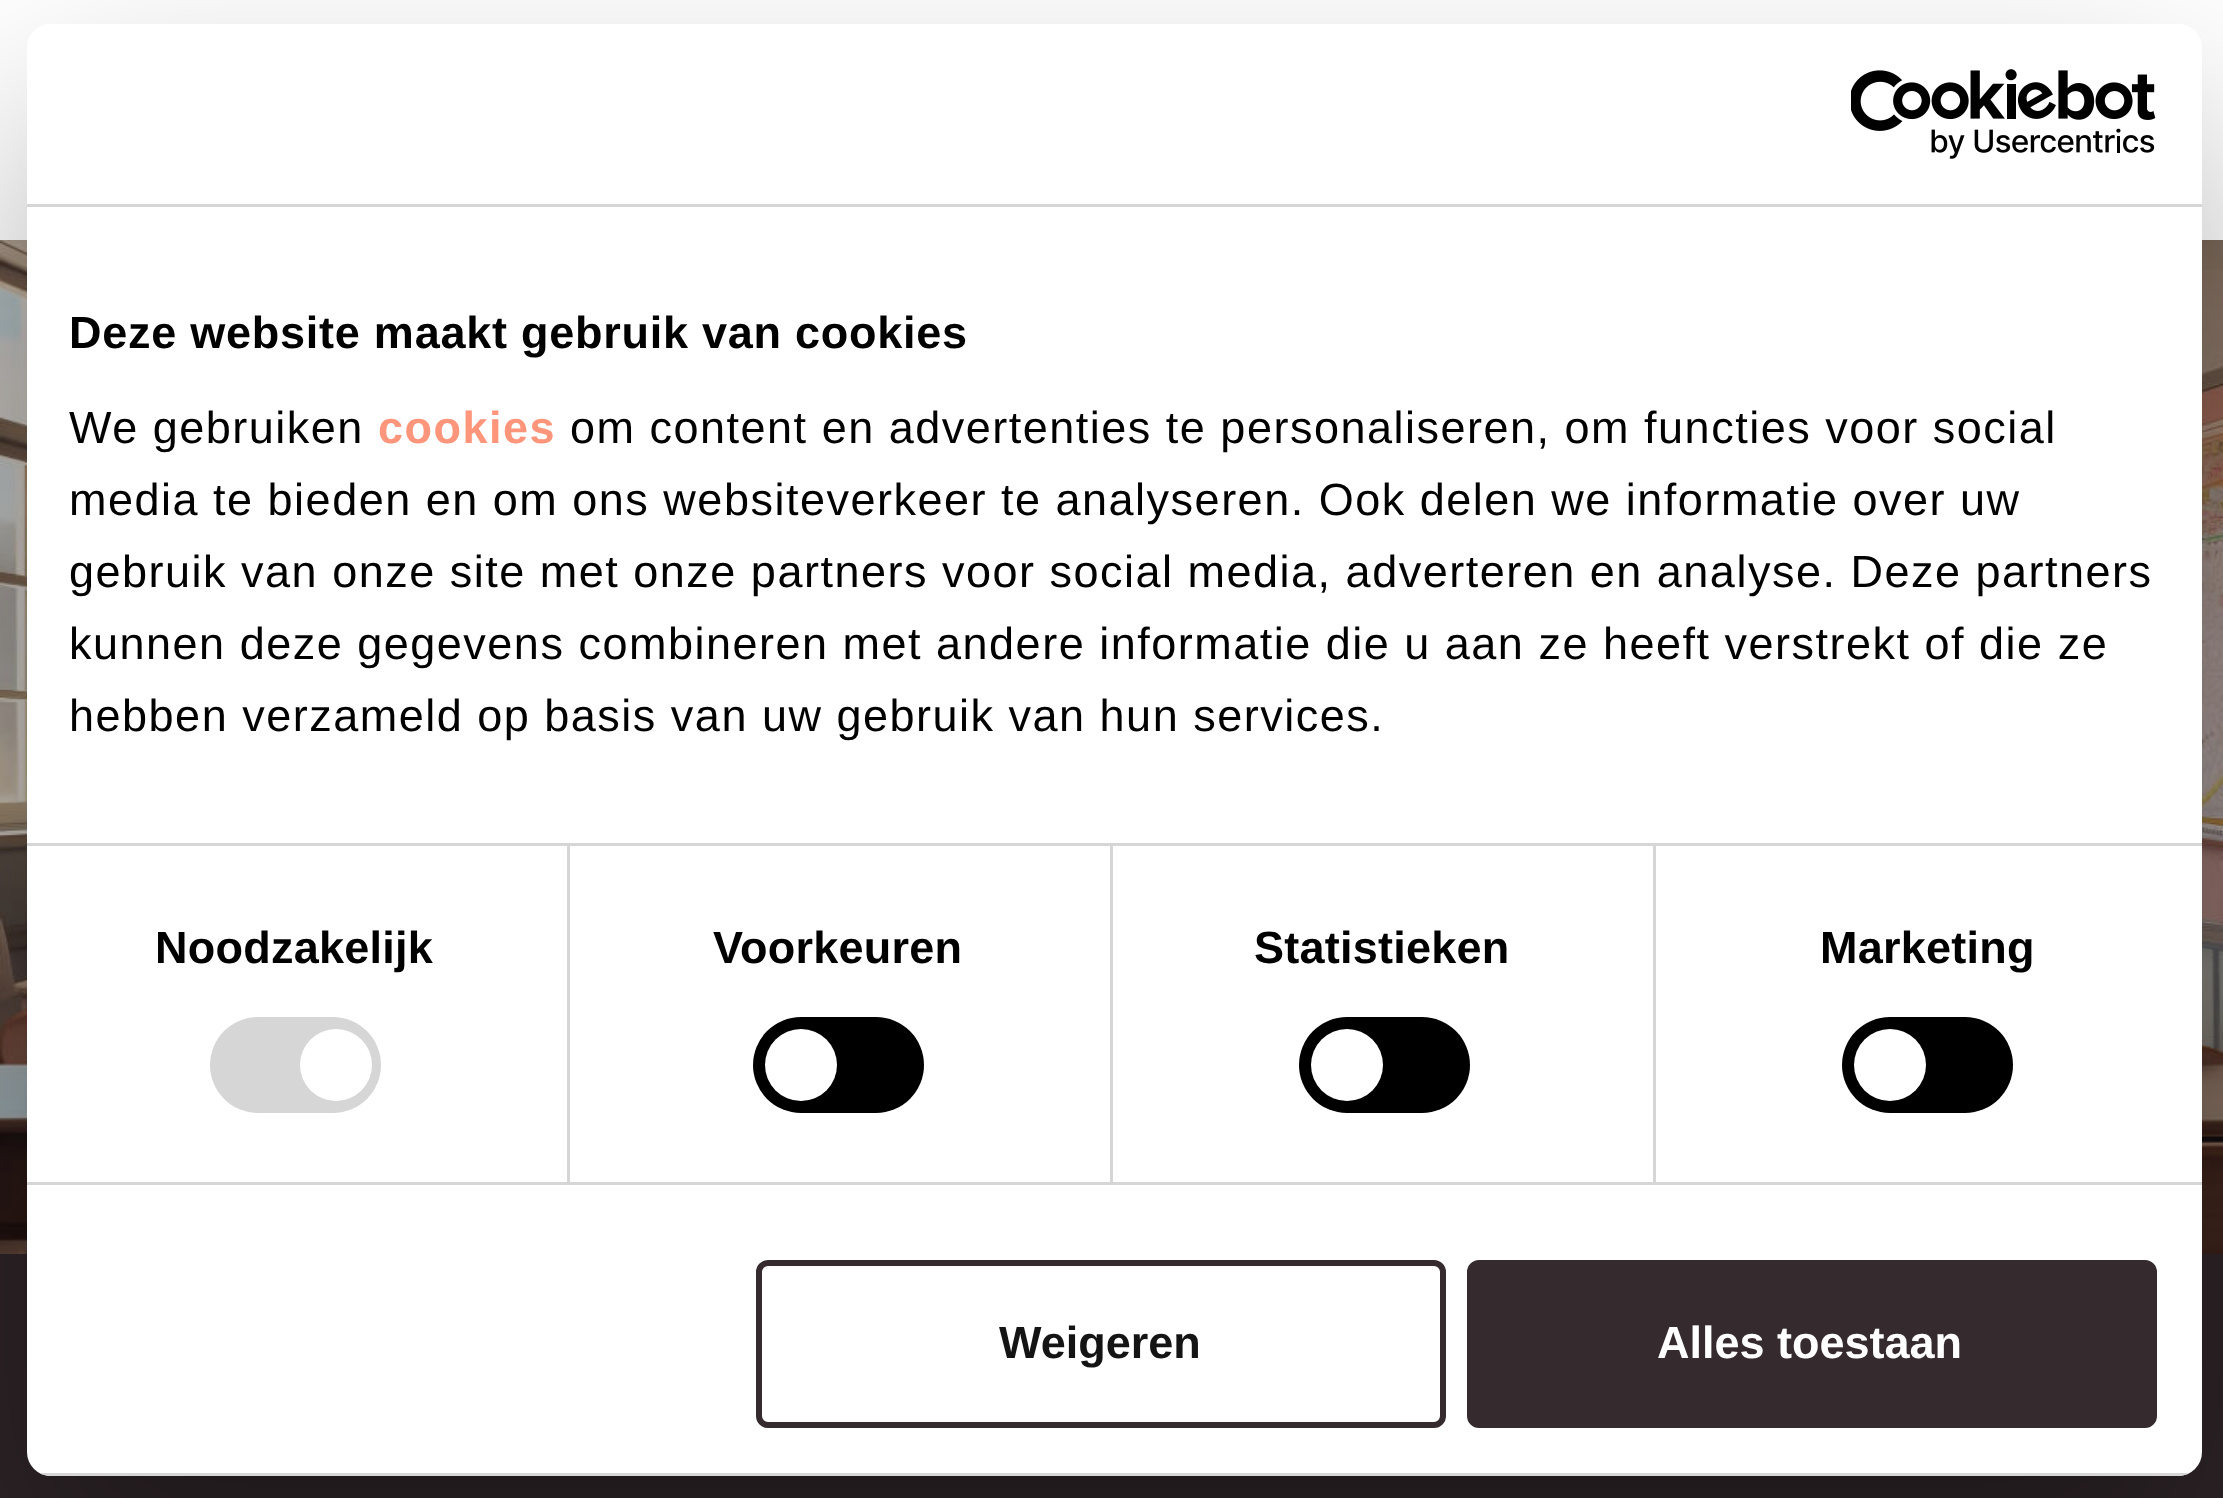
<?xml version="1.0" encoding="UTF-8"?>
<svg xmlns="http://www.w3.org/2000/svg" width="2223" height="1498">
    <defs>
        <clipPath id="clip1"><rect x="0" y="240" width="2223" height="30"/></clipPath>
        <filter id="blur1" x="-50%" y="-200%" width="200%" height="500%"><feGaussianBlur stdDeviation="30"/></filter>
        <clipPath id="clip2"><path d="M 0 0 H 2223 V 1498 H 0 Z M 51 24 H 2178 C 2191.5 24 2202 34.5 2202 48 V 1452 C 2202 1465.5 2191.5 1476 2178 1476 H 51 C 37.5 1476 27 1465.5 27 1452 V 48 C 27 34.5 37.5 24 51 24 Z" clip-rule="evenodd"/></clipPath>
        <filter id="blur2" x="-50%" y="-200%" width="200%" height="500%"><feGaussianBlur stdDeviation="102"/></filter>
        <clipPath id="clip3"><rect x="27" y="24" width="2175" height="1452" rx="24"/></clipPath>
    </defs>
    <rect width="100%" height="100%" fill="#FFFFFF"/>
    <image x="0" y="240" width="2223" height="1014" href="img_01.png"/>
    <g clip-path="url(#clip1)">
        <rect x="0" y="9" width="2223" height="240" fill="#000000" fill-opacity="0.1" filter="url(#blur1)"/>
    </g>
    <rect x="0" y="1254" width="2223" height="244" fill="#2C2326"/>
    <g clip-path="url(#clip2)">
        <rect x="27" y="120" width="2175" height="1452" rx="24" fill="#000000" fill-opacity="0.3" filter="url(#blur2)"/>
    </g>
    <rect x="27" y="24" width="2175" height="1452" rx="24" fill="#FFFFFF"/>
    <rect x="27" y="204" width="2175" height="3" fill="#D6D6D6"/>
    <image x="1851" y="69" width="305" height="90" href="img_02.png"/>
    <rect x="27" y="843" width="2175" height="3" fill="#D6D6D6"/>
    <text x="69" y="348" font-family="Liberation Sans" font-size="45" font-weight="700" letter-spacing="0.75" fill="#000000">Deze website maakt gebruik van cookies</text>
    <text x="69" y="443" font-family="Liberation Sans" font-size="45" letter-spacing="1.5" fill="#000000">We gebruiken</text>
    <text x="378" y="443" font-family="Liberation Sans" font-size="45" font-weight="700" letter-spacing="1.5" fill="#FF957A">cookies</text>
    <text x="570" y="443" font-family="Liberation Sans" font-size="45" letter-spacing="1.5" fill="#000000">om content en advertenties te personaliseren, om functies voor social</text>
    <text font-family="Liberation Sans" font-size="45" letter-spacing="1.5" fill="#000000">
        <tspan x="69" y="515">media te bieden en om ons websiteverkeer te analyseren. Ook delen we informatie over uw</tspan>
        <tspan x="69" y="587">gebruik van onze site met onze partners voor social media, adverteren en analyse. Deze partners</tspan>
        <tspan x="69" y="659">kunnen deze gegevens combineren met andere informatie die u aan ze heeft verstrekt of die ze</tspan>
        <tspan x="69" y="731">hebben verzameld op basis van uw gebruik van hun services.</tspan>
    </text>
    <rect x="27" y="1182" width="2175" height="3" fill="#D6D6D6"/>
    <rect x="567" y="846" width="3" height="336" fill="#D6D6D6"/>
    <text x="155" y="963" font-family="Liberation Sans" font-size="45" font-weight="700" letter-spacing="0.25" fill="#000000">Noodzakelijk</text>
    <rect x="210" y="1017" width="171" height="96" rx="48" fill="#D6D6D6"/>
    <circle cx="336" cy="1065" r="36" fill="#FFFFFF"/>
    <rect x="1110" y="846" width="3" height="336" fill="#D6D6D6"/>
    <text x="713" y="963" font-family="Liberation Sans" font-size="45" font-weight="700" letter-spacing="0.25" fill="#000000">Voorkeuren</text>
    <rect x="753" y="1017" width="171" height="96" rx="48" fill="#000000"/>
    <circle cx="801" cy="1065" r="36" fill="#FFFFFF"/>
    <rect x="1653" y="846" width="3" height="336" fill="#D6D6D6"/>
    <text x="1254" y="963" font-family="Liberation Sans" font-size="45" font-weight="700" letter-spacing="0.25" fill="#000000">Statistieken</text>
    <rect x="1299" y="1017" width="171" height="96" rx="48" fill="#000000"/>
    <circle cx="1347" cy="1065" r="36" fill="#FFFFFF"/>
    <text x="1820" y="963" font-family="Liberation Sans" font-size="45" font-weight="700" letter-spacing="0.25" fill="#000000">Marketing</text>
    <rect x="1842" y="1017" width="171" height="96" rx="48" fill="#000000"/>
    <circle cx="1890" cy="1065" r="36" fill="#FFFFFF"/>
    <g clip-path="url(#clip3)">
        <rect x="39" y="1473" width="2151" height="3" fill="#D6D6D6"/>
    </g>
    <rect x="759" y="1263" width="684" height="162" rx="9" fill="none" stroke="#352B2E" stroke-width="6"/>
    <text x="999" y="1358" font-family="Liberation Sans" font-size="45" font-weight="700" fill="#141414">Weigeren</text>
    <rect x="1470" y="1263" width="684" height="162" rx="9" fill="#352B2E" stroke="#352B2E" stroke-width="6"/>
    <text x="1657" y="1358" font-family="Liberation Sans" font-size="45" font-weight="700" fill="#FFFFFF">Alles toestaan</text>
</svg>
